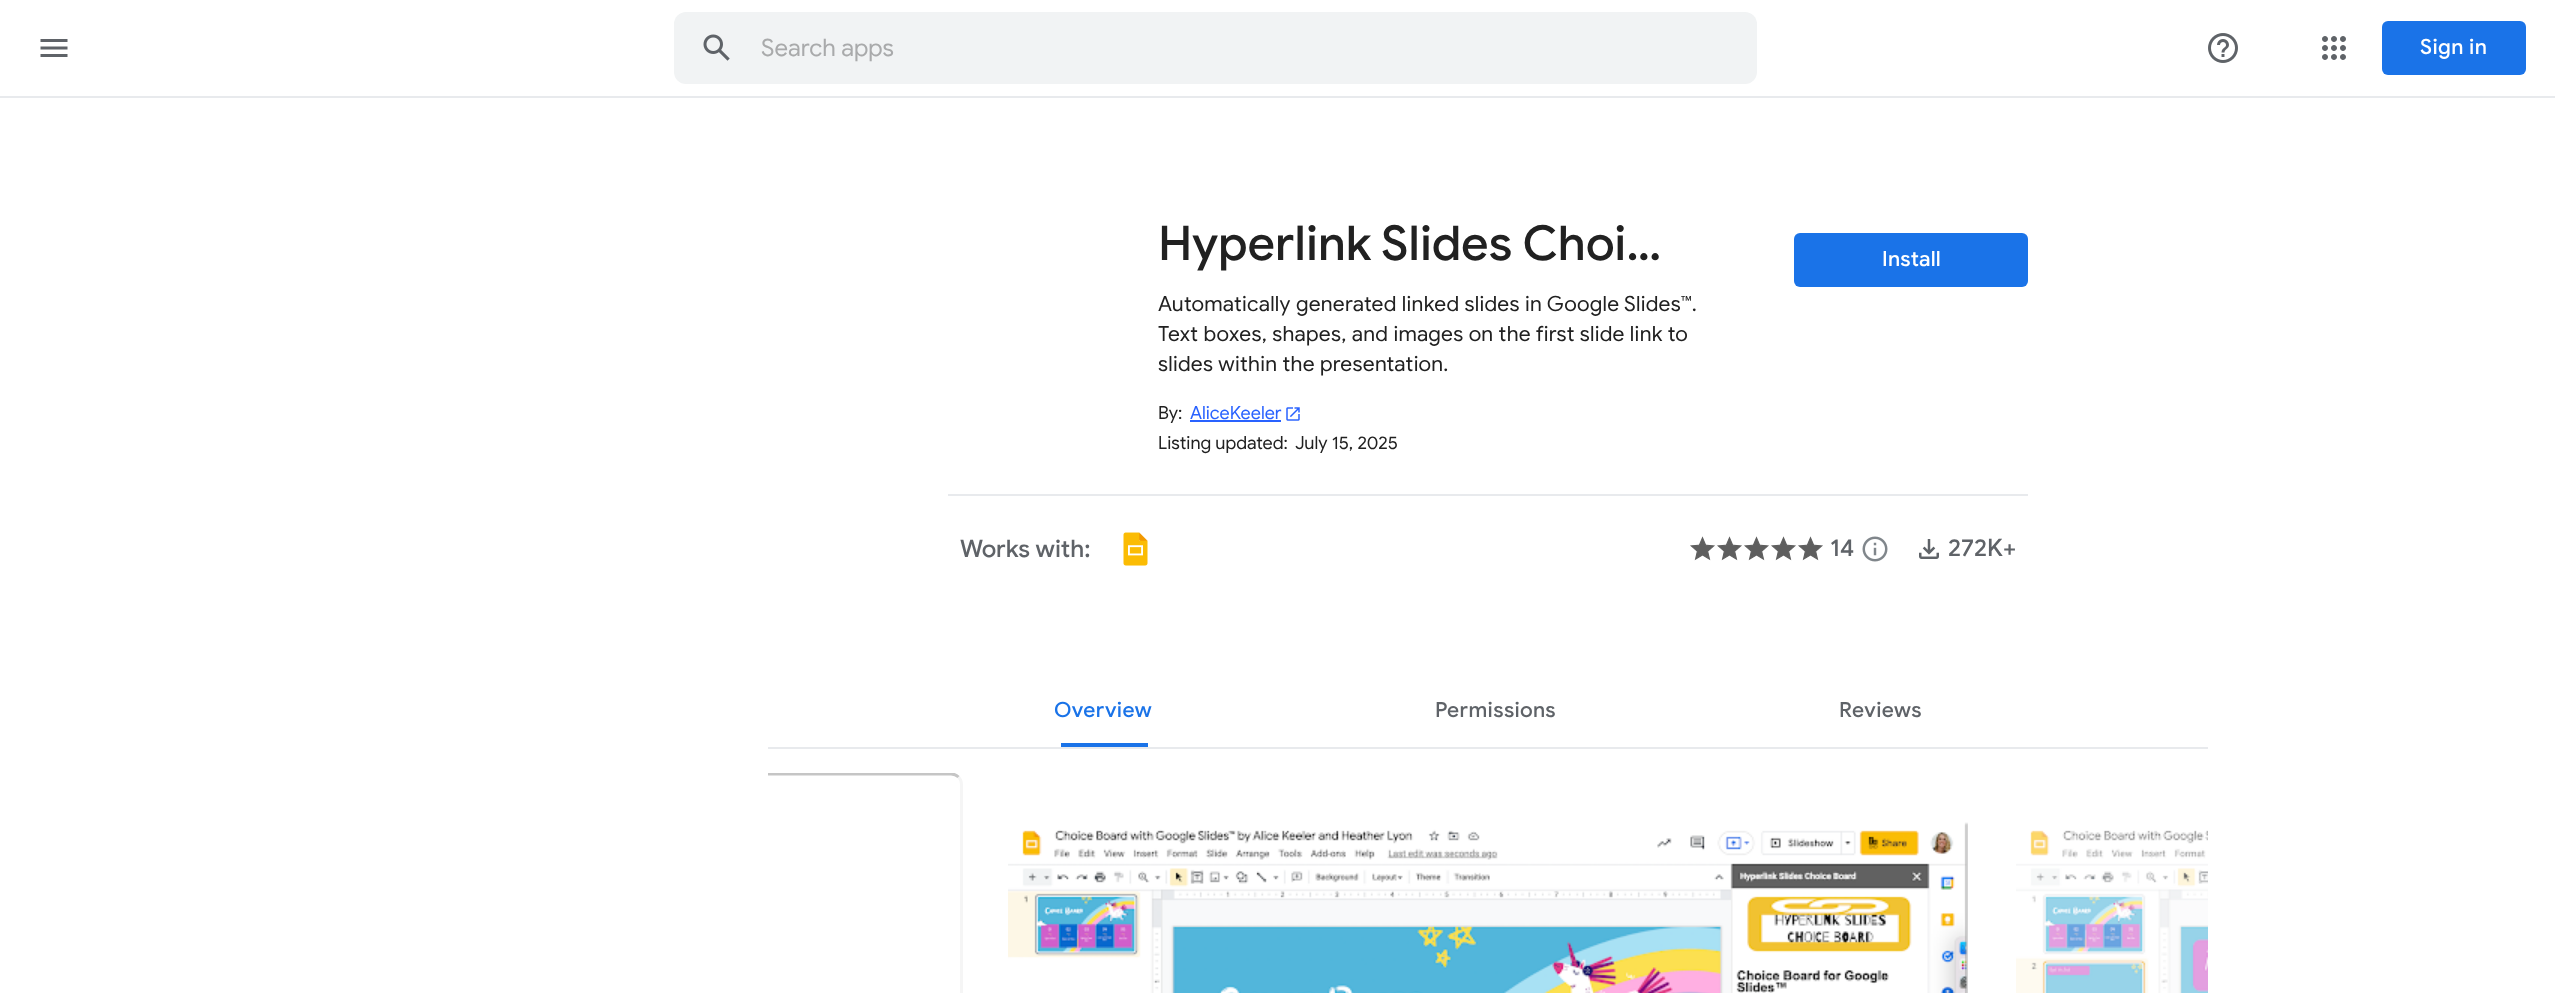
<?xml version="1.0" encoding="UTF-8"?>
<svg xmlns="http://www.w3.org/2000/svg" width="2555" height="993">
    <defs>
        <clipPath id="clip1"><rect x="768" y="773" width="1440" height="220"/></clipPath>
    </defs>
    <rect width="100%" height="100%" fill="#FFFFFF"/>
    <rect x="0" y="96" width="2555" height="2" fill="#E8EAED"/>
    <image x="40" y="39" width="28" height="18" href="img_01.png"/>
    <rect x="674" y="12" width="1083" height="72" rx="12" fill="#F1F3F4"/>
    <image x="703" y="34" width="27" height="27" href="img_02.png"/>
    <text x="761" y="56" font-family="Google Sans" font-size="24" fill="#A9AAAB">Search apps</text>
    <image x="2208" y="33" width="30" height="30" href="img_03.png"/>
    <image x="2322" y="36" width="24" height="24" href="img_04.png"/>
    <rect x="2382" y="21" width="144" height="54" rx="6" fill="#1A73E8"/>
    <text x="2420" y="54" font-family="Google Sans" font-size="21" font-weight="500" letter-spacing="0.4" fill="#FFFFFF">Sign in</text>
    <text x="1158" y="260" font-family="Google Sans" font-size="48" font-weight="500" fill="#212121">Hyperlink Slides Choi…</text>
    <text font-family="Google Sans" font-size="21" letter-spacing="0.3" fill="#212121">
        <tspan x="1158" y="311">Automatically generated linked slides in Google Slides™.</tspan>
        <tspan x="1158" y="341">Text boxes, shapes, and images on the first slide link to</tspan>
        <tspan x="1158" y="371">slides within the presentation.</tspan>
    </text>
    <text x="1158" y="419" font-family="Google Sans" font-size="18" fill="#212121">By:</text>
    <text x="1190" y="419" font-family="Google Sans" font-size="18" fill="#2962FF">AliceKeeler</text>
    <rect x="1190" y="420" width="91" height="2" fill="#2962FF"/>
    <image x="1286" y="407" width="14" height="14" href="img_05.png"/>
    <text x="1158" y="449" font-family="Google Sans" font-size="18" fill="#212121">Listing updated:</text>
    <text x="1295" y="449" font-family="Google Sans" font-size="18" fill="#212121">July 15, 2025</text>
    <rect x="1794" y="233" width="234" height="54" rx="6" fill="#1A73E8"/>
    <text x="1882" y="266" font-family="Google Sans" font-size="21" font-weight="500" letter-spacing="0.25" fill="#FFFFFF">Install</text>
    <rect x="948" y="494" width="1080" height="2" fill="#E8EAED"/>
    <text x="960" y="557" font-family="Google Sans" font-size="24" font-weight="500" fill="#5F6368">Works with:</text>
    <image x="1123" y="532" width="25" height="34" href="img_06.png"/>
    <image x="1690" y="536" width="25" height="25" href="img_07.png"/>
    <image x="1717" y="536" width="25" height="25" href="img_07.png"/>
    <image x="1744" y="536" width="25" height="25" href="img_07.png"/>
    <image x="1771" y="536" width="25" height="25" href="img_07.png"/>
    <image x="1798" y="536" width="25" height="25" href="img_07.png"/>
    <text x="1830" y="556" font-family="Google Sans" font-size="24" font-weight="500" fill="#5F6368">14</text>
    <image x="1862" y="536" width="26" height="26" href="img_08.png"/>
    <image x="1919" y="539" width="20" height="20" href="img_09.png"/>
    <text x="1948" y="556" font-family="Google Sans" font-size="24" font-weight="500" fill="#5F6368">272K+</text>
    <text x="1054" y="717" font-family="Google Sans" font-size="21" font-weight="500" letter-spacing="0.4" fill="#1A73E8">Overview</text>
    <rect x="1061" y="743" width="87" height="4" fill="#1A73E8"/>
    <text x="1435" y="717" font-family="Google Sans" font-size="21" font-weight="500" letter-spacing="0.4" fill="#5F6368">Permissions</text>
    <text x="1839" y="717" font-family="Google Sans" font-size="21" font-weight="500" letter-spacing="0.4" fill="#5F6368">Reviews</text>
    <rect x="768" y="747" width="1440" height="2" fill="#E8EAED"/>
    <path d="M 958.5 777 C 960.5 779 961.5 781.5 961.5 784.5 V 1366.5 C 961.5 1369.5 960.5 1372 958.5 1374 C 956.5 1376 954 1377 951 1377 H 9 C 6 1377 3.5 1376 1.5 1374" fill="none" stroke="#F5F5F5" stroke-width="3"/>
    <g clip-path="url(#clip1)">
        <path d="M 1.5 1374 C -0.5 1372 -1.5 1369.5 -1.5 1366.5 V 784.5 C -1.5 781.5 -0.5 779 1.5 777 C 3.5 775 6 774 9 774 H 951 C 954 774 956.5 775 958.5 777" fill="none" stroke="#C5C5C5" stroke-width="3"/>
    </g>
    <image x="1008" y="822" width="960" height="171" href="img_10.png"/>
    <image x="2016" y="830" width="192" height="163" href="img_11.png"/>
</svg>
